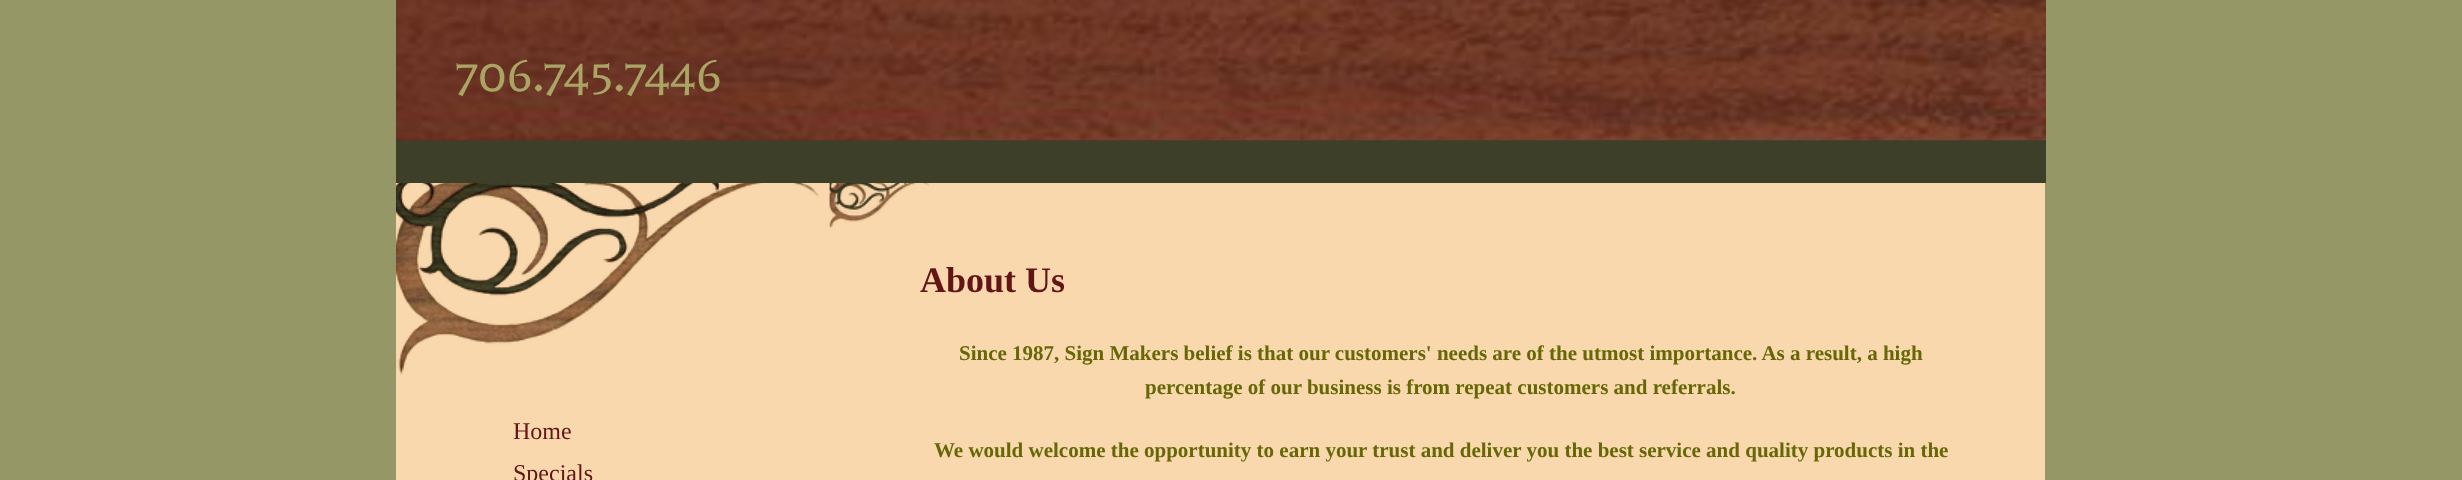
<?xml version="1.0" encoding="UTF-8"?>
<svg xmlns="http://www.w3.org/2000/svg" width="2462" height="480">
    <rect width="100%" height="100%" fill="#959766"/>
    <rect x="396" y="140" width="1650" height="43" fill="#3E3F29"/>
    <image x="396" y="0" width="1650" height="141" href="img_01.png"/>
    <text x="456" y="91" font-family="Balthazar" font-size="54" fill="#AAA565">706.745.7446</text>
    <rect x="396" y="183" width="1649" height="297" fill="#F9D8AD"/>
    <image x="396" y="183" width="423" height="192" href="img_02.png"/>
    <image x="396" y="183" width="423" height="192" href="img_03.png"/>
    <text font-family="Liberation Serif" font-size="24" fill="#621417">
        <tspan x="513" y="439">Home</tspan>
        <tspan x="513" y="481">Specials</tspan>
    </text>
    <image x="829" y="183" width="100" height="45" href="img_04.png"/>
    <image x="829" y="183" width="100" height="45" href="img_05.png"/>
    <text x="920" y="292" font-family="Liberation Serif" font-size="36" font-weight="700" fill="#621417">About Us</text>
    <text x="959" y="360" font-family="Liberation Serif" font-size="21" font-weight="700" fill="#666808">Since 1987, Sign Makers belief is that our customers' needs are of the utmost importance. As a result, a high</text>
    <text x="1145" y="394" font-family="Liberation Serif" font-size="21" font-weight="700" fill="#666808">percentage of our business is from repeat customers and referrals.</text>
    <text x="934" y="457" font-family="Liberation Serif" font-size="21" font-weight="700" fill="#666808">We would welcome the opportunity to earn your trust and deliver you the best service and quality products in the</text>
</svg>
